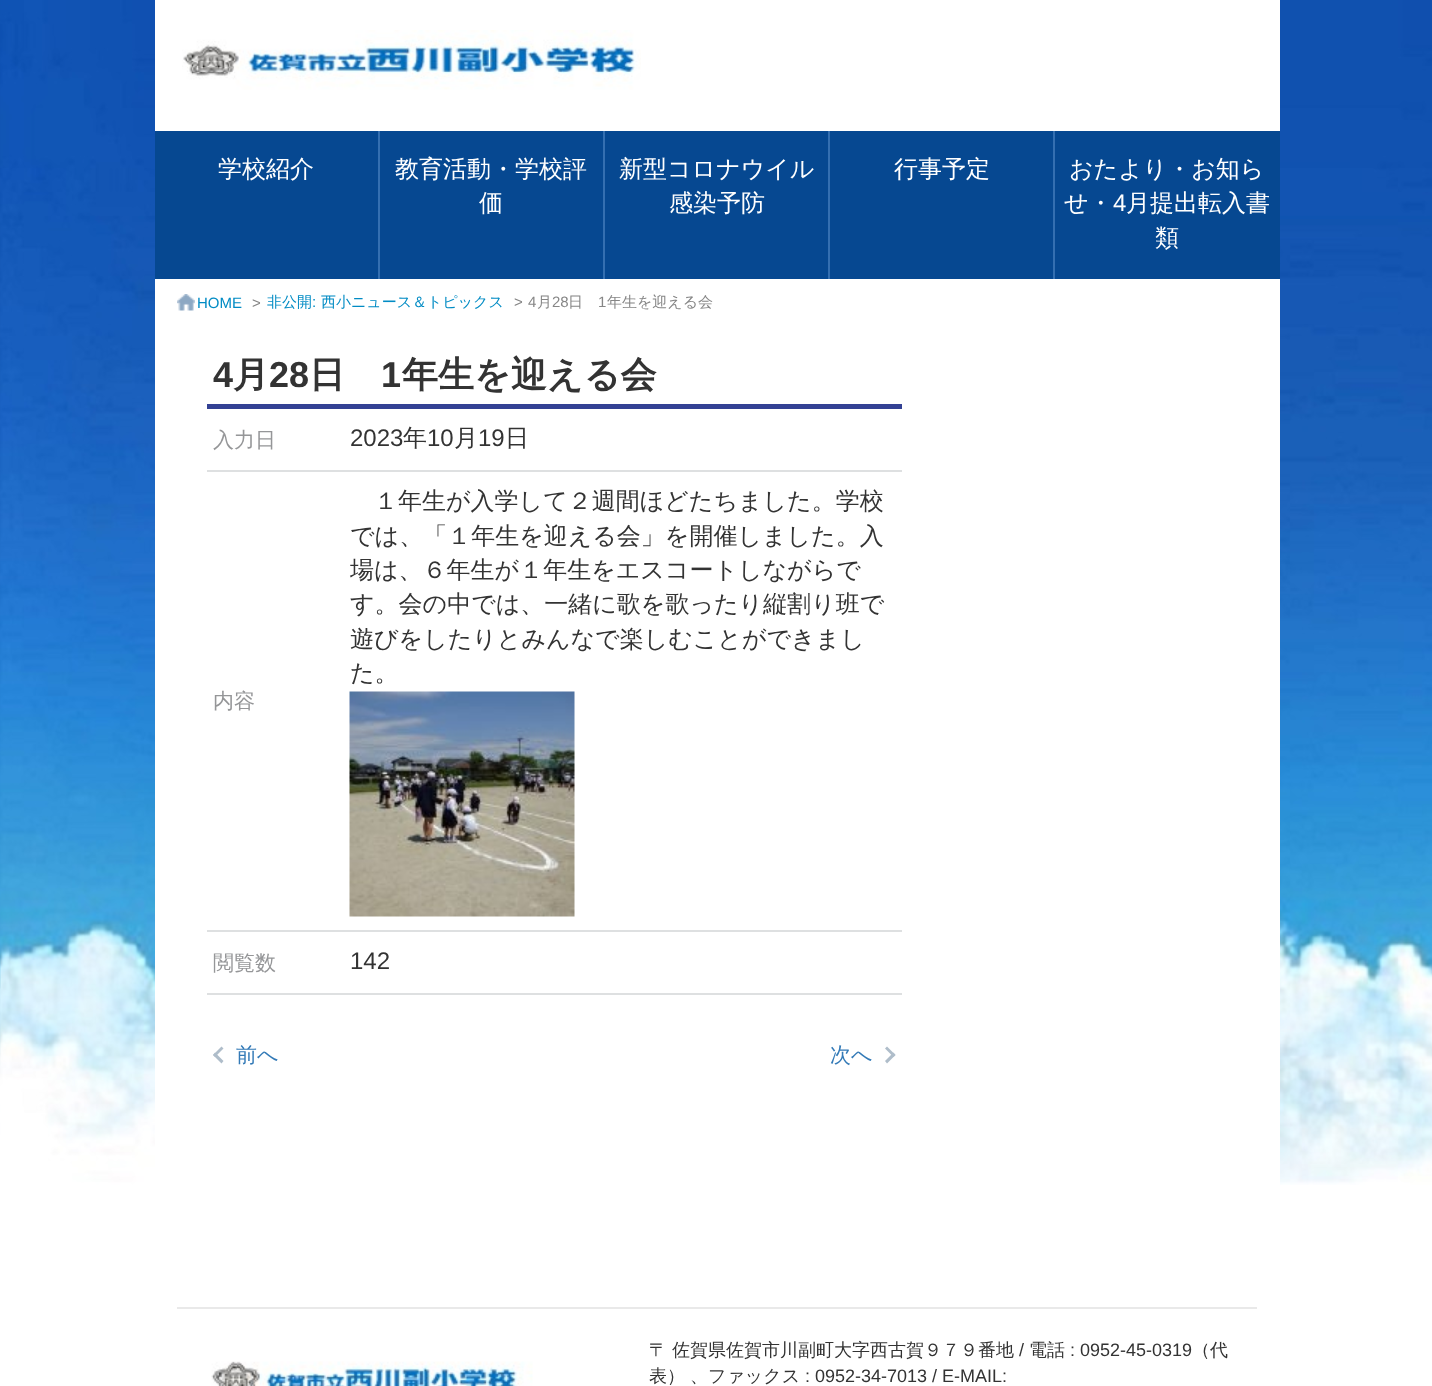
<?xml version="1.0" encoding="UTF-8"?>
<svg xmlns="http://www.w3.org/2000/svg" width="1432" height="1386">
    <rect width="100%" height="100%" fill="#FFFFFF"/>
    <image x="0" y="0" width="1432" height="1185" href="img_01.png"/>
    <rect x="155" y="0" width="1125" height="131" fill="#FFFFFF"/>
    <image x="182" y="30" width="459" height="60" href="img_02.png"/>
    <rect x="155" y="131" width="223" height="148" fill="#064891"/>
    <text x="218" y="177" font-family="WenQuanYi Zen Hei" font-size="24" font-weight="500" fill="#FFFFFF">学校紹介</text>
    <rect x="380" y="131" width="223" height="148" fill="#064891"/>
    <rect x="378" y="131" width="2" height="148" fill="#346FB1"/>
    <text x="395" y="177" font-family="WenQuanYi Zen Hei" font-size="24" font-weight="500" fill="#FFFFFF">教育活動・学校評</text>
    <text x="479" y="211" font-family="WenQuanYi Zen Hei" font-size="24" font-weight="500" fill="#FFFFFF">価</text>
    <rect x="605" y="131" width="223" height="148" fill="#064891"/>
    <rect x="603" y="131" width="2" height="148" fill="#346FB1"/>
    <text x="619" y="177" font-family="WenQuanYi Zen Hei" font-size="24" font-weight="500" fill="#FFFFFF">新型コロナウイル</text>
    <text x="669" y="211" font-family="WenQuanYi Zen Hei" font-size="24" font-weight="500" fill="#FFFFFF">感染予防</text>
    <rect x="830" y="131" width="223" height="148" fill="#064891"/>
    <rect x="828" y="131" width="2" height="148" fill="#346FB1"/>
    <text x="894" y="177" font-family="WenQuanYi Zen Hei" font-size="24" font-weight="500" fill="#FFFFFF">行事予定</text>
    <rect x="1055" y="131" width="225" height="148" fill="#064891"/>
    <rect x="1053" y="131" width="2" height="148" fill="#346FB1"/>
    <text x="1069" y="177" font-family="WenQuanYi Zen Hei" font-size="24" font-weight="500" fill="#FFFFFF">おたより・お知ら</text>
    <text x="1064" y="211" font-family="WenQuanYi Zen Hei" font-size="24" font-weight="500" fill="#FFFFFF">せ・</text>
    <text x="1113" y="211" font-family="Liberation Sans" font-size="24" fill="#FFFFFF">4</text>
    <text x="1126" y="211" font-family="WenQuanYi Zen Hei" font-size="24" font-weight="500" fill="#FFFFFF">月提出転入書</text>
    <text x="1155" y="246" font-family="WenQuanYi Zen Hei" font-size="24" font-weight="500" fill="#FFFFFF">類</text>
    <rect x="155" y="279" width="1125" height="906" fill="#FFFFFF"/>
    <image x="177" y="294" width="18" height="17" href="img_03.png"/>
    <text x="197" y="308" font-family="Liberation Sans" font-size="15" fill="#018BC4">HOME</text>
    <text x="252" y="308" font-family="Liberation Sans" font-size="15" fill="#868686">&gt;</text>
    <text x="267" y="307" font-family="WenQuanYi Zen Hei" font-size="15" font-weight="500" fill="#018BC4">非公開</text>
    <text x="312" y="307" font-family="Liberation Sans" font-size="15" fill="#018BC4">:</text>
    <text x="321" y="307" font-family="WenQuanYi Zen Hei" font-size="15" font-weight="500" fill="#018BC4">西小ニュース＆トピックス</text>
    <text x="514" y="307" font-family="Liberation Sans" font-size="15" fill="#868686">&gt;</text>
    <text x="528" y="307" font-family="Liberation Sans" font-size="15" fill="#868686">4</text>
    <text x="537" y="307" font-family="WenQuanYi Zen Hei" font-size="15" font-weight="500" fill="#868686">月</text>
    <text x="552" y="307" font-family="Liberation Sans" font-size="15" fill="#868686">28</text>
    <text x="568" y="307" font-family="WenQuanYi Zen Hei" font-size="15" font-weight="500" fill="#868686">日</text>
    <text x="598" y="307" font-family="Liberation Sans" font-size="15" fill="#868686">1</text>
    <text x="607" y="307" font-family="WenQuanYi Zen Hei" font-size="15" font-weight="500" fill="#868686">年生を迎える会</text>
    <rect x="207" y="404" width="695" height="5" fill="#334194"/>
    <text x="213" y="387" font-family="Liberation Sans" font-size="36" font-weight="700" fill="#333333">4</text>
    <text x="233" y="387" font-family="WenQuanYi Zen Hei" font-size="36" font-weight="700" fill="#333333">月</text>
    <text x="269" y="387" font-family="Liberation Sans" font-size="36" font-weight="700" fill="#333333">28</text>
    <text x="309" y="387" font-family="WenQuanYi Zen Hei" font-size="36" font-weight="700" fill="#333333">日</text>
    <text x="381" y="387" font-family="Liberation Sans" font-size="36" font-weight="700" fill="#333333">1</text>
    <text x="402" y="387" font-family="WenQuanYi Zen Hei" font-size="36" font-weight="700" fill="#333333">年生を迎える会</text>
    <rect x="207" y="470" width="695" height="2" fill="#DEE0E1"/>
    <text x="213" y="447" font-family="WenQuanYi Zen Hei" font-size="21" font-weight="500" fill="#959698">入力日</text>
    <text x="350" y="446" font-family="Liberation Sans" font-size="24" fill="#333333">2023</text>
    <text x="403" y="446" font-family="WenQuanYi Zen Hei" font-size="24" font-weight="500" fill="#333333">年</text>
    <text x="427" y="446" font-family="Liberation Sans" font-size="24" fill="#333333">10</text>
    <text x="454" y="446" font-family="WenQuanYi Zen Hei" font-size="24" font-weight="500" fill="#333333">月</text>
    <text x="478" y="446" font-family="Liberation Sans" font-size="24" fill="#333333">19</text>
    <text x="505" y="446" font-family="WenQuanYi Zen Hei" font-size="24" font-weight="500" fill="#333333">日</text>
    <rect x="207" y="930" width="695" height="2" fill="#DEE0E1"/>
    <text x="374" y="509" font-family="WenQuanYi Zen Hei" font-size="24" font-weight="500" fill="#333333">１年生が入学して２週間ほどたちました。学校</text>
    <text font-family="WenQuanYi Zen Hei" font-size="24" font-weight="500" fill="#333333">
        <tspan x="350" y="544">では、「１年生を迎える会」を開催しました。入</tspan>
        <tspan x="350" y="578">場は、６年生が１年生をエスコートしながらで</tspan>
        <tspan x="350" y="612">す。会の中では、一緒に歌を歌ったり縦割り班で</tspan>
        <tspan x="350" y="647">遊びをしたりとみんなで楽しむことができまし</tspan>
        <tspan x="350" y="681">た。</tspan>
    </text>
    <image x="349" y="691" width="226" height="226" href="img_04.png"/>
    <text x="213" y="708" font-family="WenQuanYi Zen Hei" font-size="21" font-weight="500" fill="#959698">内容</text>
    <rect x="207" y="993" width="695" height="2" fill="#DEE0E1"/>
    <text x="213" y="970" font-family="WenQuanYi Zen Hei" font-size="21" font-weight="500" fill="#959698">閲覧数</text>
    <text x="350" y="969" font-family="Liberation Sans" font-size="24" fill="#333333">142</text>
    <path d="M 213 1055 L 221.5 1046.5 L 223.5 1048.5 L 215 1057 Z" fill="#AFBDCA"/>
    <path d="M 213 1055 L 215 1052.5 L 223.5 1061 L 221.5 1063.5 Z" fill="#AFBDCA"/>
    <text x="236" y="1062" font-family="WenQuanYi Zen Hei" font-size="21" font-weight="500" fill="#337AB7">前へ</text>
    <text x="830" y="1062" font-family="WenQuanYi Zen Hei" font-size="21" font-weight="500" fill="#337AB7">次へ</text>
    <path d="M 887 1046.5 L 895.5 1055 L 893.5 1057 L 885 1048.5 Z" fill="#AFBDCA"/>
    <path d="M 893.5 1052.5 L 895.5 1055 L 887 1063.5 L 885 1061 Z" fill="#AFBDCA"/>
    <rect x="177" y="1307" width="1080" height="2" fill="#E9E9E9"/>
    <image x="211" y="1361" width="322" height="25" href="img_05.png"/>
    <text x="649" y="1356" font-family="WenQuanYi Zen Hei" font-size="18" font-weight="500" fill="#333333">〒</text>
    <text x="672" y="1356" font-family="WenQuanYi Zen Hei" font-size="18" font-weight="500" fill="#333333">佐賀県佐賀市川副町大字西古賀９７９番地</text>
    <text x="1019" y="1356" font-family="Liberation Sans" font-size="18" fill="#333333">/</text>
    <text x="1029" y="1356" font-family="WenQuanYi Zen Hei" font-size="18" font-weight="500" fill="#333333">電話</text>
    <text x="1070" y="1356" font-family="Liberation Sans" font-size="18" fill="#333333">: 0952-45-0319</text>
    <text x="1192" y="1356" font-family="WenQuanYi Zen Hei" font-size="18" font-weight="500" fill="#333333">（代</text>
    <text x="649" y="1382" font-family="WenQuanYi Zen Hei" font-size="18" font-weight="500" fill="#333333">表）</text>
    <text x="690" y="1382" font-family="WenQuanYi Zen Hei" font-size="18" font-weight="500" fill="#333333">、ファックス</text>
    <text x="805" y="1382" font-family="Liberation Sans" font-size="18" fill="#333333">: 0952-34-7013 / E-MAIL:</text>
</svg>
